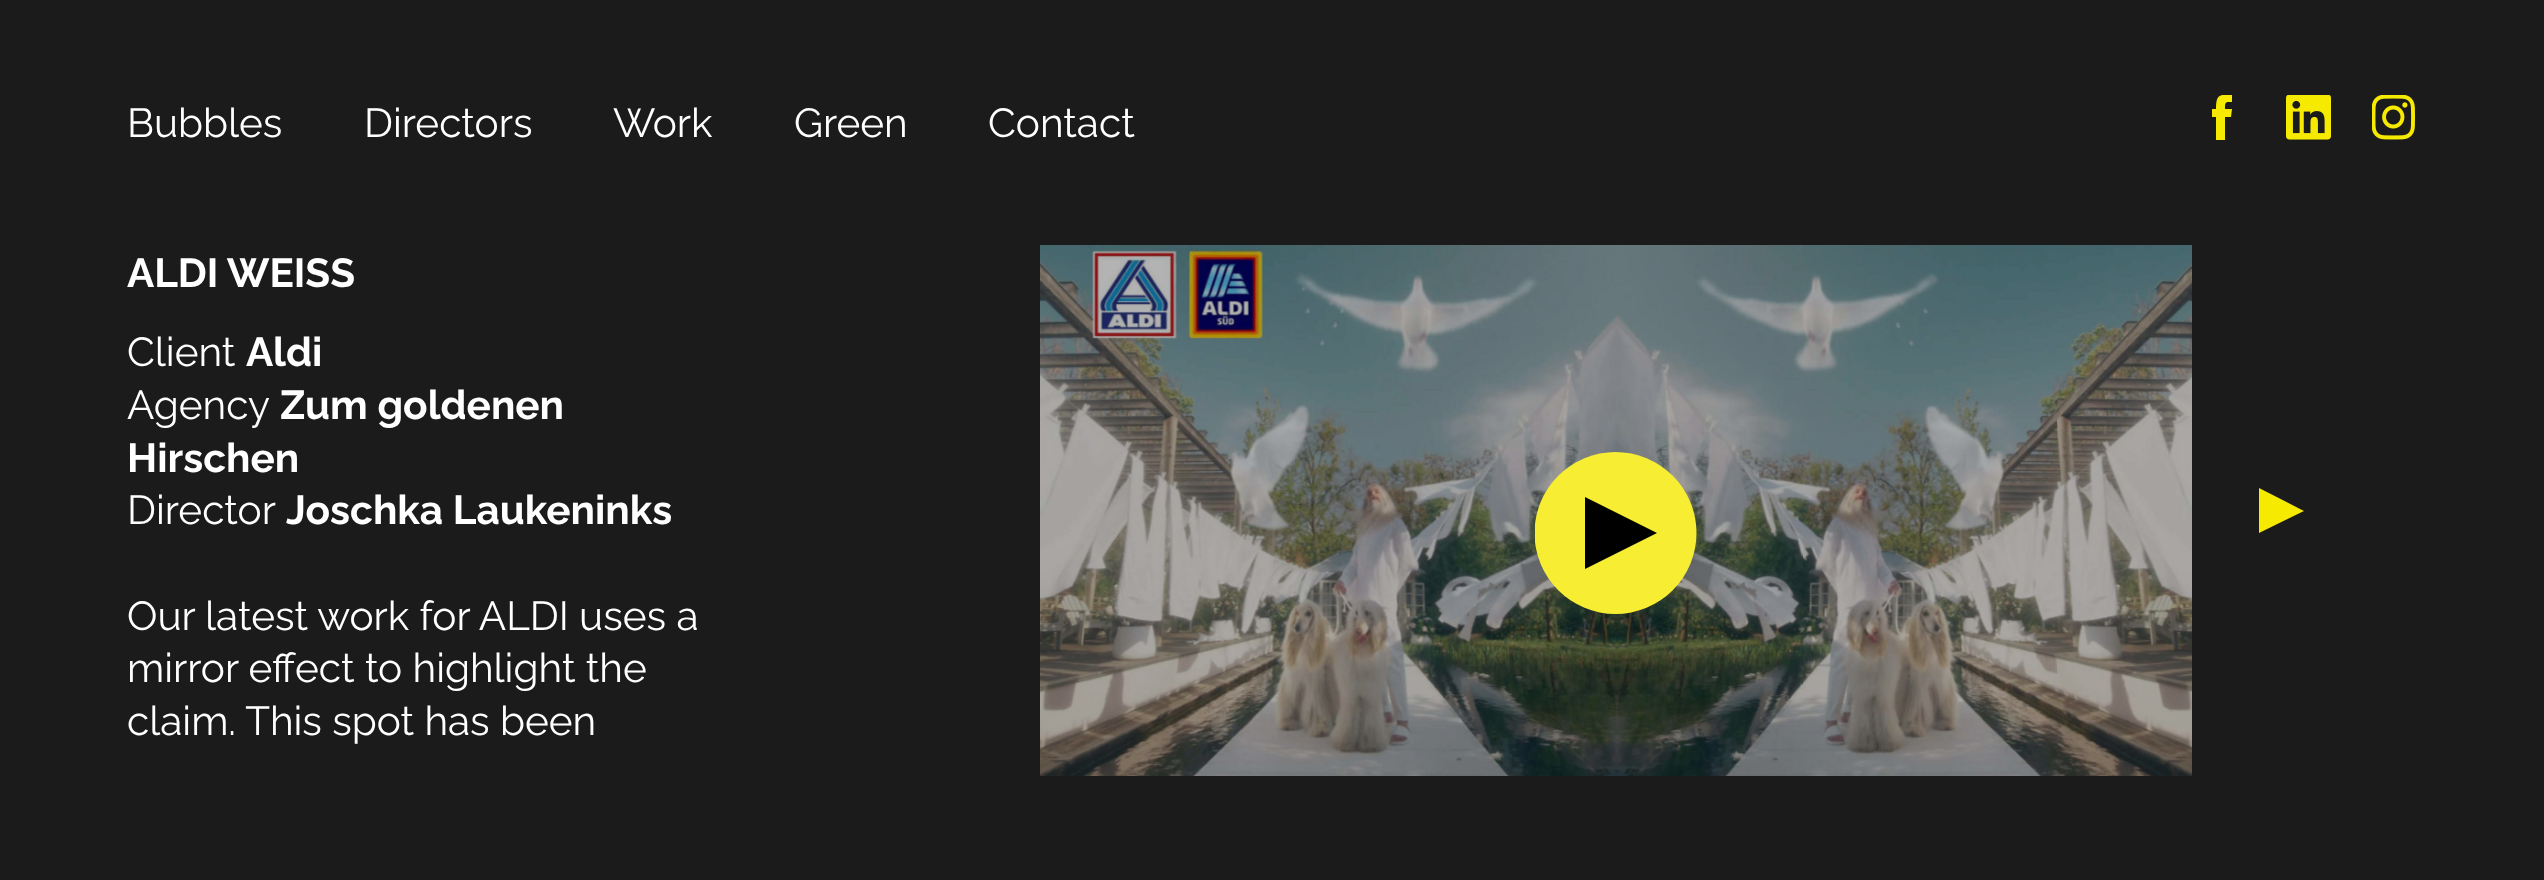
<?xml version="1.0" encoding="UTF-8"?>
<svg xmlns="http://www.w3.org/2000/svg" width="2544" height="880">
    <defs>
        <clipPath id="clip1"><rect x="2201" y="95" width="45" height="45"/></clipPath>
        <clipPath id="clip2"><rect x="1535" y="452" width="162" height="162"/></clipPath>
    </defs>
    <rect width="100%" height="100%" fill="#1B1B1B"/>
    <text x="127" y="137" font-family="Raleway" font-size="40.5" fill="#FFFFFF">Bubbles</text>
    <text x="364" y="137" font-family="Raleway" font-size="40.5" fill="#FFFFFF">Directors</text>
    <text x="613" y="137" font-family="Raleway" font-size="40.5" fill="#FFFFFF">Work</text>
    <text x="794" y="137" font-family="Raleway" font-size="40.5" fill="#FFFFFF">Green</text>
    <text x="988" y="137" font-family="Raleway" font-size="40.5" fill="#FFFFFF">Contact</text>
    <g clip-path="url(#clip1)">
        <path d="M 2232 109 H 2225 C 2225 102 2225 102 2232 102 V 95 C 2219 94 2216 95 2216 109 H 2212 V 117 H 2216 V 140 H 2225 V 117 H 2231 Z" fill="#F5EA00"/>
    </g>
    <image x="2286" y="95" width="45" height="45" href="img_01.png"/>
    <image x="2372" y="95" width="43" height="45" href="img_02.png"/>
    <text x="127" y="287" font-family="Raleway" font-size="40.5" font-weight="700" fill="#FFFFFF">ALDI WEISS</text>
    <text x="127" y="366" font-family="Raleway" font-size="40.5" fill="#FFFFFF">Client</text>
    <text x="246" y="366" font-family="Raleway" font-size="40.5" font-weight="700" fill="#FFFFFF">Aldi</text>
    <text x="127" y="419" font-family="Raleway" font-size="40.5" fill="#FFFFFF">Agency</text>
    <text x="280" y="419" font-family="Raleway" font-size="40.5" font-weight="700" fill="#FFFFFF">Zum goldenen</text>
    <text x="127" y="472" font-family="Raleway" font-size="40.5" font-weight="700" fill="#FFFFFF">Hirschen</text>
    <text x="127" y="524" font-family="Raleway" font-size="40.5" fill="#FFFFFF">Director</text>
    <text x="286" y="524" font-family="Raleway" font-size="40.5" font-weight="700" fill="#FFFFFF">Joschka Laukeninks</text>
    <text font-family="Raleway" font-size="40.5" fill="#FFFFFF">
        <tspan x="127" y="630">Our latest work for ALDI uses a</tspan>
        <tspan x="127" y="682">mirror effect to highlight the</tspan>
        <tspan x="127" y="735">claim. This spot has been</tspan>
    </text>
    <image x="1040" y="245" width="1152" height="531" href="img_03.png"/>
    <g clip-path="url(#clip2)">
        <circle cx="1615.5" cy="533" r="81" fill="#F7EE33"/>
    </g>
    <path d="M 1585 497 L 1657 533 L 1585 569 Z" fill="#000000"/>
    <path d="M 2259 488 L 2304 511 L 2259 533 Z" fill="#F5EA00"/>
</svg>
